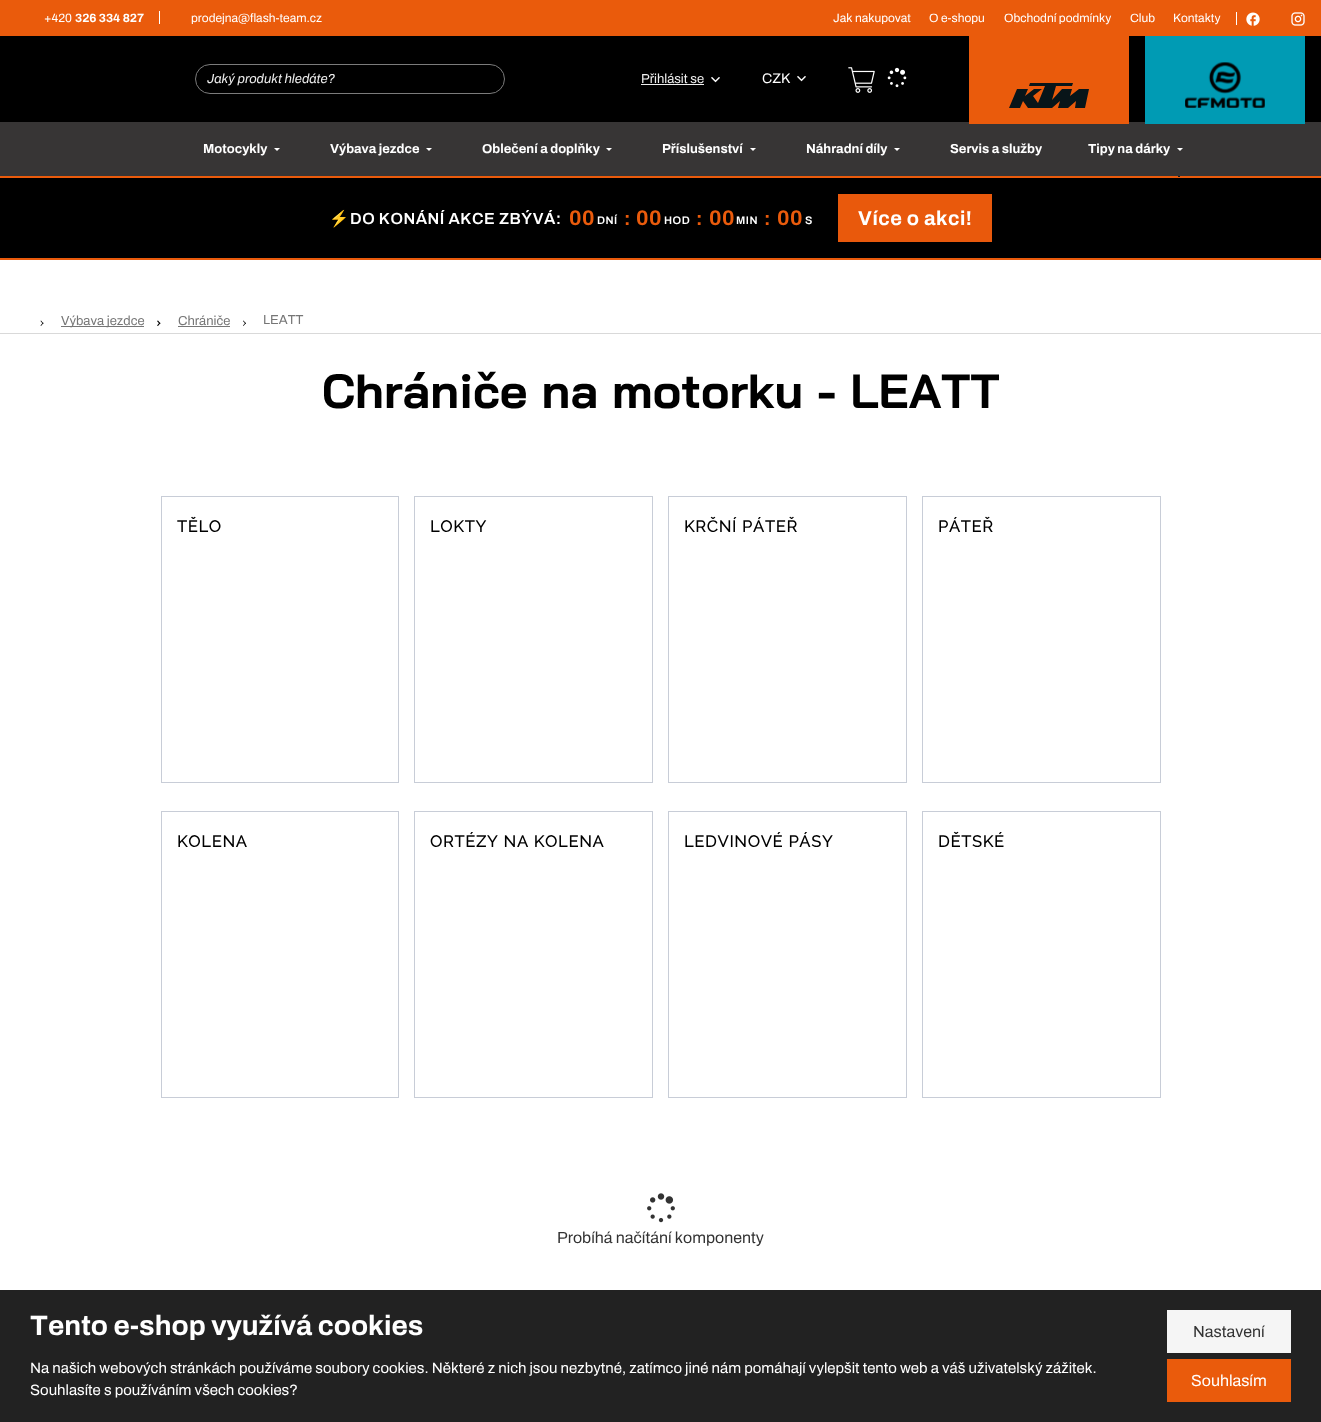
<?xml version="1.0" encoding="UTF-8"?>
<svg xmlns="http://www.w3.org/2000/svg" width="1321" height="1422">
    <style>*{font-kerning:none!important;font-variant-ligatures:none!important}</style>
    <rect width="100%" height="100%" fill="#FFFFFF"/>
    <rect x="0" y="36" width="1321" height="222" fill="#000000"/>
    <rect x="0" y="0" width="1321" height="36" fill="#EA5B0C"/>
    <text x="44" y="22" font-family="Archivo" font-size="12" fill="#FFFFFF">+420</text>
    <text x="75" y="22" font-family="Archivo" font-size="12" font-weight="700" fill="#FFFFFF">326 334 827</text>
    <rect x="159" y="11" width="1" height="13" fill="#FFFFFF"/>
    <text x="191" y="22" font-family="Archivo" font-size="12" fill="#FFFFFF">prodejna@flash-team.cz</text>
    <text x="833" y="22" font-family="Archivo" font-size="12" fill="#FFFFFF">Jak nakupovat</text>
    <text x="929" y="22" font-family="Archivo" font-size="12" fill="#FFFFFF">O e-shopu</text>
    <text x="1004" y="22" font-family="Archivo" font-size="12" fill="#FFFFFF">Obchodní podmínky</text>
    <text x="1130" y="22" font-family="Archivo" font-size="12" fill="#FFFFFF">Club</text>
    <text x="1173" y="22" font-family="Archivo" font-size="12" fill="#FFFFFF">Kontakty</text>
    <rect x="1236" y="12" width="1" height="13" fill="#FFFFFF"/>
    <image x="1246" y="12" width="14" height="14" href="img_01.png"/>
    <image x="1291" y="12" width="14" height="14" href="img_02.png"/>
    <rect x="195.5" y="64.5" width="309" height="29" rx="14.5" fill="none" stroke="#7B7B7B"/>
    <text x="207" y="83" font-family="Archivo" font-size="13" font-style="italic" fill="#EEEEEE">Jaký produkt hledáte?</text>
    <text x="641" y="83" font-family="Archivo" font-size="13" fill="#EEEEEE">Přihlásit se</text>
    <rect x="641" y="84" width="63" height="1" fill="#EEEEEE"/>
    <image x="711" y="77" width="9" height="6" href="img_03.png"/>
    <text x="762" y="83" font-family="Archivo" font-size="14" fill="#FFFFFF">CZK</text>
    <image x="797" y="76" width="9" height="6" href="img_03.png"/>
    <image x="848" y="67" width="27" height="26" href="img_04.png"/>
    <image x="887" y="67" width="20" height="21" href="img_05.png"/>
    <rect x="195" y="122" width="1126" height="54" fill="#373535"/>
    <rect x="969" y="36" width="160" height="88" fill="#EA5B0C"/>
    <path d="M 1009 108 H 1020 L 1023 101 L 1028 108 H 1052 L 1060 101 L 1058 108 H 1068 L 1076 101 L 1075 108 H 1085 L 1089 89 H 1079 L 1070 96 L 1072 89 H 1062 L 1052 100 L 1056 86 H 1072 L 1073 83 H 1030 L 1029 86 H 1045 L 1038 103 L 1033 96 L 1042 89 H 1034 L 1025 96 L 1028 89 H 1017 Z" fill="#081519"/>
    <rect x="1145" y="36" width="160" height="88" fill="#009BB4"/>
    <image x="1185" y="62" width="80" height="46" href="img_06.png"/>
    <rect x="0" y="122" width="195" height="54" fill="#373535"/>
    <text x="203" y="153" font-family="Archivo" font-size="13" font-weight="700" fill="#FFFFFF">Motocykly</text>
    <path d="M 274 148 H 280 L 277 151 Z" fill="#FFFFFF"/>
    <text x="330" y="153" font-family="Archivo" font-size="13" font-weight="700" fill="#FFFFFF">Výbava jezdce</text>
    <path d="M 426 148 H 432 L 429 151 Z" fill="#FFFFFF"/>
    <text x="482" y="153" font-family="Archivo" font-size="13" font-weight="700" fill="#FFFFFF">Oblečení a doplňky</text>
    <path d="M 606 148 H 612 L 609 151 Z" fill="#FFFFFF"/>
    <text x="662" y="153" font-family="Archivo" font-size="13" font-weight="700" fill="#FFFFFF">Příslušenství</text>
    <path d="M 750 148 H 756 L 753 151 Z" fill="#FFFFFF"/>
    <text x="806" y="153" font-family="Archivo" font-size="13" font-weight="700" fill="#FFFFFF">Náhradní díly</text>
    <path d="M 894 148 H 900 L 897 151 Z" fill="#FFFFFF"/>
    <text x="950" y="153" font-family="Archivo" font-size="13" font-weight="700" fill="#FFFFFF">Servis a služby</text>
    <text x="1088" y="153" font-family="Archivo" font-size="13" font-weight="700" fill="#FFFFFF">Tipy na dárky</text>
    <path d="M 1177 148 H 1183 L 1180 151 Z" fill="#FFFFFF"/>
    <rect x="0" y="176" width="1321" height="2" fill="#EA5B0C"/>
    <rect x="1178" y="176" width="2" height="1" fill="#1D1C1C"/>
    <rect x="0" y="258" width="1321" height="2" fill="#EA5B0C"/>
    <text x="329" y="224" font-family="Noto Color Emoji" font-size="16" font-weight="700" letter-spacing="0.5" fill="#FFFFFF">⚡</text>
    <text x="350" y="224" font-family="Archivo" font-size="16" font-weight="600" letter-spacing="0.5" fill="#FFFFFF">DO KONÁNÍ AKCE ZBÝVÁ:</text>
    <text x="569" y="225" font-family="Archivo" font-size="21" font-weight="700" letter-spacing="0.5" fill="#EA5B0C">00</text>
    <text x="597" y="224" font-family="Archivo" font-size="11" font-weight="600" letter-spacing="0.5" fill="#FFFFFF">DNÍ</text>
    <text x="624" y="225" font-family="Archivo" font-size="19" font-weight="700" letter-spacing="0.5" fill="#EA5B0C">:</text>
    <text x="636" y="225" font-family="Archivo" font-size="21" font-weight="700" letter-spacing="0.5" fill="#EA5B0C">00</text>
    <text x="664" y="224" font-family="Archivo" font-size="11" font-weight="600" letter-spacing="0.5" fill="#FFFFFF">HOD</text>
    <text x="696" y="225" font-family="Archivo" font-size="19" font-weight="700" letter-spacing="0.5" fill="#EA5B0C">:</text>
    <text x="709" y="225" font-family="Archivo" font-size="21" font-weight="700" letter-spacing="0.5" fill="#EA5B0C">00</text>
    <text x="736" y="224" font-family="Archivo" font-size="11" font-weight="600" letter-spacing="0.5" fill="#FFFFFF">MIN</text>
    <text x="764" y="225" font-family="Archivo" font-size="19" font-weight="700" letter-spacing="0.5" fill="#EA5B0C">:</text>
    <text x="777" y="225" font-family="Archivo" font-size="21" font-weight="700" letter-spacing="0.5" fill="#EA5B0C">00</text>
    <text x="805" y="224" font-family="Archivo" font-size="11" font-weight="600" letter-spacing="0.5" fill="#FFFFFF">S</text>
    <rect x="838" y="194" width="154" height="48" fill="#E9590C"/>
    <text x="858" y="225" font-family="Archivo" font-size="20" font-weight="700" letter-spacing="0.5" fill="#FFFFFF">Více o akci!</text>
    <rect x="0" y="333" width="1321" height="1" fill="#D9D9D9"/>
    <path d="M 40.5 321 L 41 320.5 L 43.5 323.5 L 43 324 Z" fill="#000000"/>
    <path d="M 43 322.5 L 43.5 323 L 41 326 L 40.5 325.5 Z" fill="#000000"/>
    <rect x="61" y="326" width="83" height="1" fill="#767676"/>
    <text x="61" y="325" font-family="Archivo" font-size="13" fill="#767676">Výbava jezdce</text>
    <path d="M 157 321 L 158 320.5 L 160.5 323.5 L 159.5 324 Z" fill="#000000"/>
    <path d="M 159.5 322.5 L 160.5 323 L 158 326 L 157 325.5 Z" fill="#000000"/>
    <text x="178" y="325" font-family="Archivo" font-size="13" fill="#767676">Chrániče</text>
    <rect x="178" y="326" width="52" height="1" fill="#767676"/>
    <path d="M 243 321 L 243.5 320.5 L 246 323.5 L 245.5 324 Z" fill="#000000"/>
    <path d="M 245.5 322.5 L 246 323 L 243.5 326 L 243 325.5 Z" fill="#000000"/>
    <text x="263" y="324" font-family="Archivo" font-size="13" fill="#767676">LEATT</text>
    <text x="322" y="408" font-family="Bai Jamjuree" font-size="48" font-weight="700" fill="#000000">Chrániče na motorku - LEATT</text>
    <rect x="161.5" y="496.5" width="237" height="286" fill="none" stroke="#C8CDD7"/>
    <text x="177" y="532" font-family="Raleway" font-size="16" font-weight="700" letter-spacing="1" fill="#000000">TĚLO</text>
    <rect x="414.5" y="496.5" width="238" height="286" fill="none" stroke="#C8CDD7"/>
    <text x="430" y="532" font-family="Raleway" font-size="16" font-weight="700" letter-spacing="1" fill="#000000">LOKTY</text>
    <rect x="668.5" y="496.5" width="238" height="286" fill="none" stroke="#C8CDD7"/>
    <text x="684" y="532" font-family="Raleway" font-size="16" font-weight="700" letter-spacing="1" fill="#000000">KRČNÍ PÁTEŘ</text>
    <rect x="922.5" y="496.5" width="238" height="286" fill="none" stroke="#C8CDD7"/>
    <text x="938" y="532" font-family="Raleway" font-size="16" font-weight="700" letter-spacing="1" fill="#000000">PÁTEŘ</text>
    <rect x="161.5" y="811.5" width="237" height="286" fill="none" stroke="#C8CDD7"/>
    <text x="177" y="847" font-family="Raleway" font-size="16" font-weight="700" letter-spacing="1" fill="#000000">KOLENA</text>
    <rect x="414.5" y="811.5" width="238" height="286" fill="none" stroke="#C8CDD7"/>
    <text x="430" y="847" font-family="Raleway" font-size="16" font-weight="700" letter-spacing="1" fill="#000000">ORTÉZY NA KOLENA</text>
    <rect x="668.5" y="811.5" width="238" height="286" fill="none" stroke="#C8CDD7"/>
    <text x="684" y="847" font-family="Raleway" font-size="16" font-weight="700" letter-spacing="1" fill="#000000">LEDVINOVÉ PÁSY</text>
    <rect x="922.5" y="811.5" width="238" height="286" fill="none" stroke="#C8CDD7"/>
    <text x="938" y="847" font-family="Raleway" font-size="16" font-weight="700" letter-spacing="1" fill="#000000">DĚTSKÉ</text>
    <image x="647" y="1193" width="28" height="30" href="img_07.png"/>
    <text x="557" y="1243" font-family="Archivo" font-size="16" fill="#333333">Probíhá načítání komponenty</text>
    <rect x="0" y="1290" width="1321" height="132" fill="#222222"/>
    <text x="30" y="1335" font-family="Archivo" font-size="28" font-weight="700" fill="#FFFFFF">Tento e-shop využívá cookies</text>
    <text font-family="Archivo" font-size="15" fill="#FFFFFF">
        <tspan x="30" y="1373">Na našich webových stránkách používáme soubory cookies. Některé z nich jsou nezbytné, zatímco jiné nám pomáhají vylepšit tento web a váš uživatelský zážitek.</tspan>
        <tspan x="30" y="1395">Souhlasíte s používáním všech cookies?</tspan>
    </text>
    <rect x="1167" y="1310" width="124" height="43" fill="#F5F5F5"/>
    <text x="1193" y="1337" font-family="Archivo" font-size="16" fill="#333333">Nastavení</text>
    <rect x="1167" y="1359" width="124" height="43" fill="#EA5B0C"/>
    <text x="1191" y="1386" font-family="Archivo" font-size="16" fill="#FFFFFF">Souhlasím</text>
</svg>
